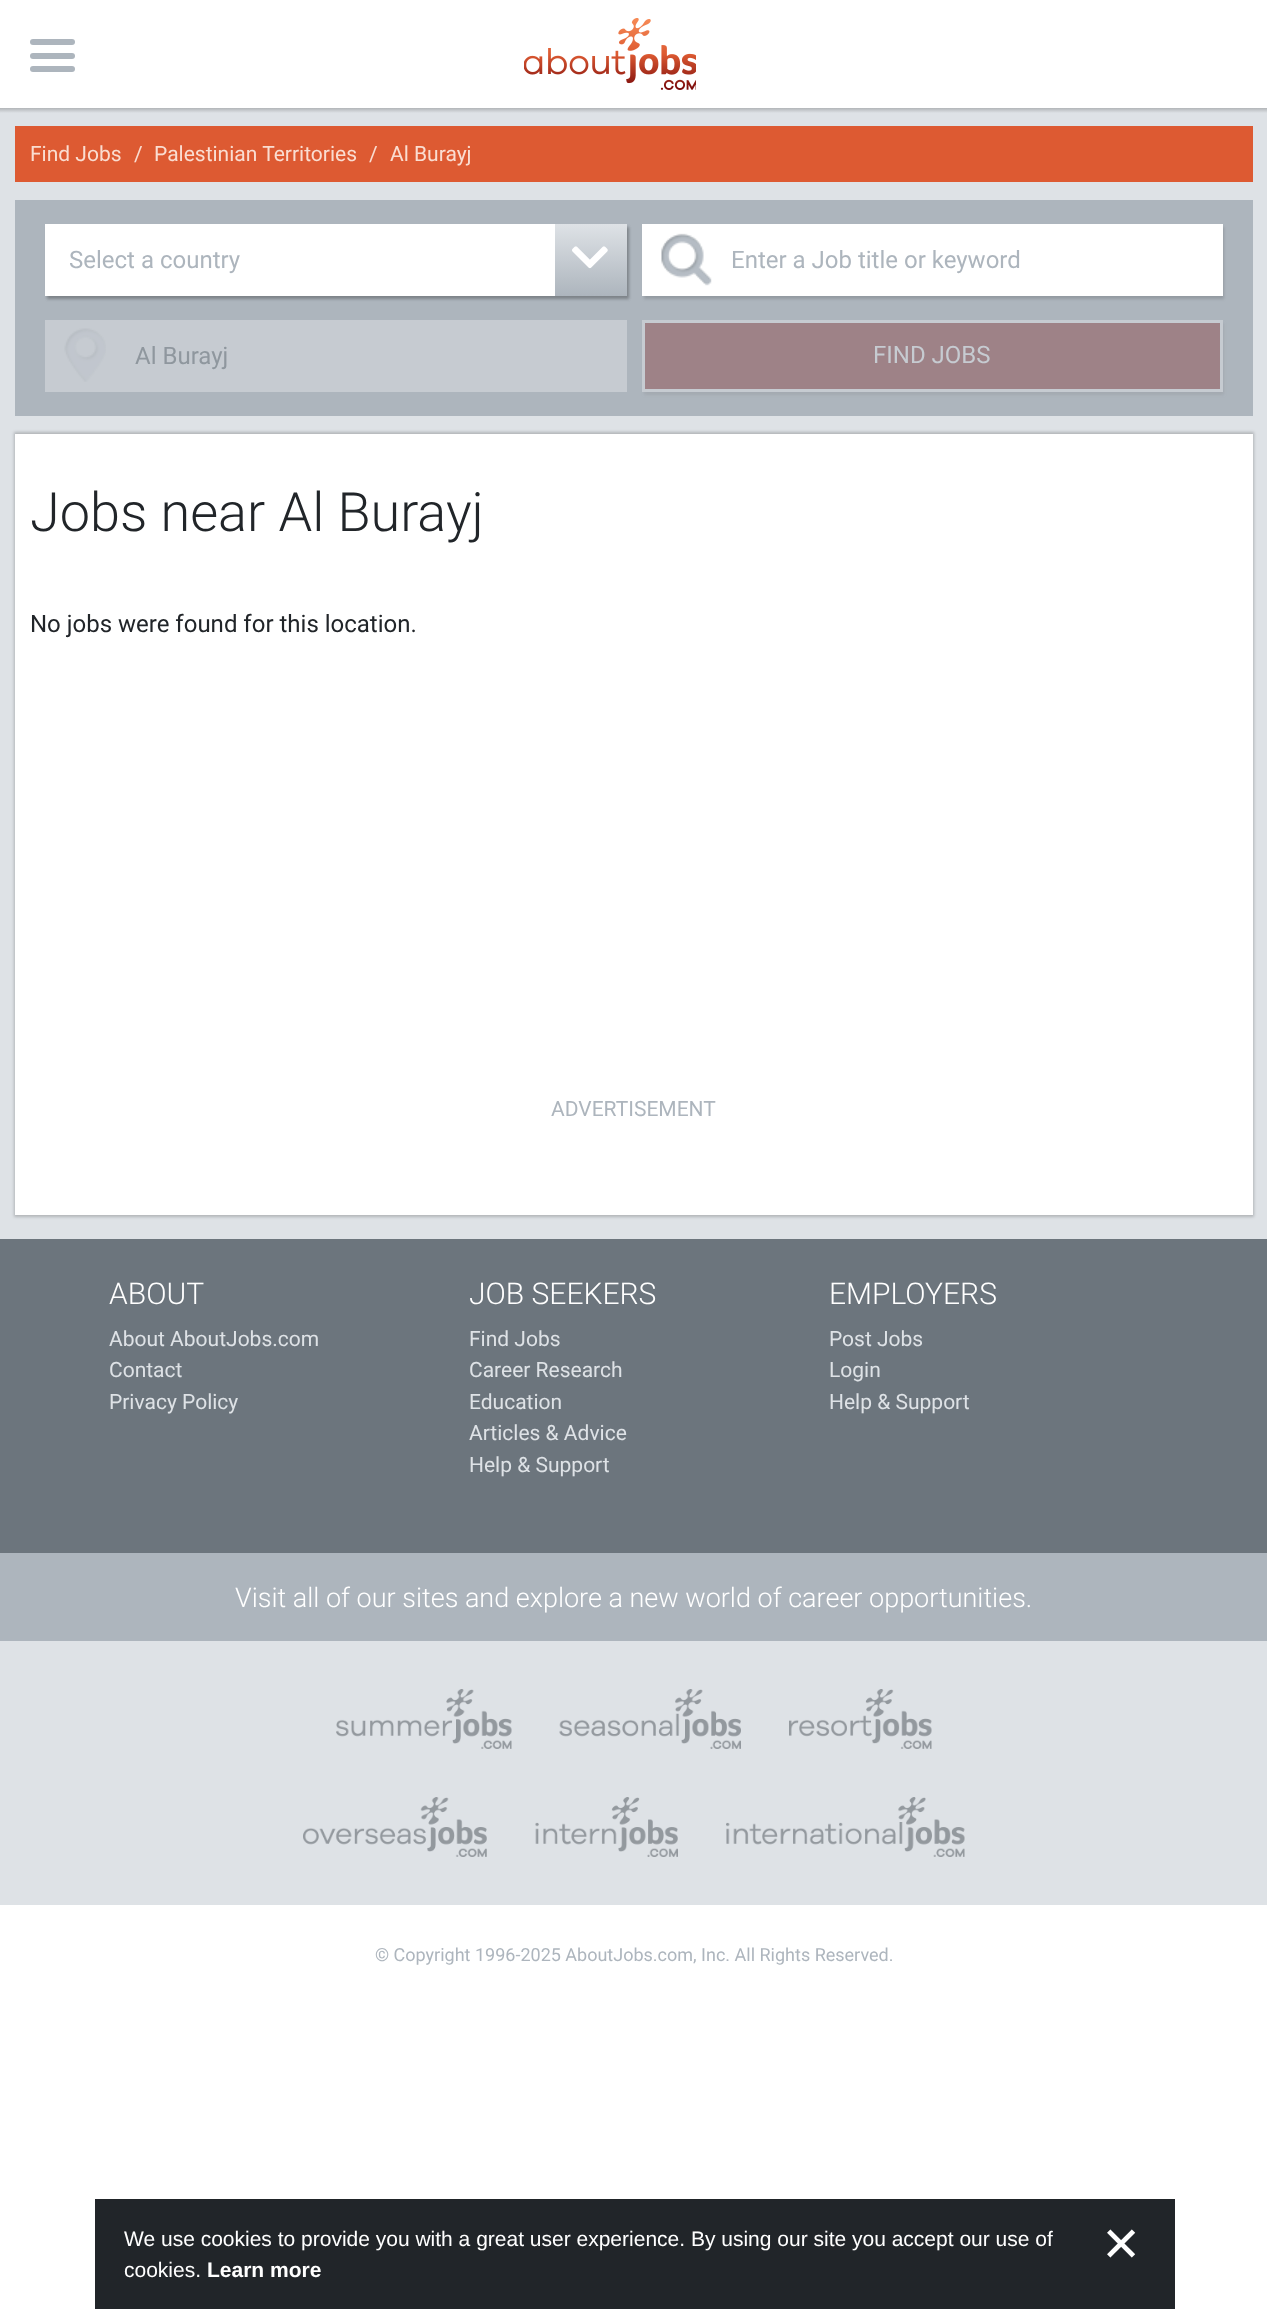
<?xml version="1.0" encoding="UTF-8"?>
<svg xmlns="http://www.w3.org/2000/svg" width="1267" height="2309">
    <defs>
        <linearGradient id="g1" gradientUnits="userSpaceOnUse" x1="634" y1="108" x2="634" y2="113"><stop offset="0" stop-color="#B2B5B8"/><stop offset="1" stop-color="#DEE2E6"/></linearGradient>
        <filter id="blur1" x="-50%" y="-200%" width="200%" height="500%"><feGaussianBlur stdDeviation="1.5"/></filter>
        <clipPath id="clip1"><path d="M 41 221 H 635 V 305 H 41 Z M 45 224 H 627 V 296 H 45 Z" clip-rule="evenodd"/></clipPath>
        <linearGradient id="g2" gradientUnits="userSpaceOnUse" x1="591" y1="224" x2="591" y2="296"><stop offset="0" stop-color="#DEE2E6"/><stop offset="1" stop-color="#ADB5BD"/></linearGradient>
    </defs>
    <rect width="100%" height="100%" fill="#FFFFFF"/>
    <rect x="30" y="66" width="45" height="6" rx="3" fill="#ADB5BD"/>
    <rect x="30" y="39" width="45" height="6" rx="3" fill="#ADB5BD"/>
    <rect x="30" y="53" width="45" height="6" rx="3" fill="#ADB5BD"/>
    <image x="524" y="18" width="172" height="72" href="img_01.png"/>
    <rect x="0" y="108" width="1267" height="5" fill="url(#g1)"/>
    <rect x="0" y="113" width="1267" height="1126" fill="#DEE2E6"/>
    <rect x="15" y="126" width="1238" height="56" fill="#DD5A32"/>
    <text x="30" y="161" font-family="Roboto" font-size="21" fill="#FADDD1">Find Jobs</text>
    <text x="134" y="161" font-family="Roboto" font-size="21" fill="#FADDD1">/</text>
    <text x="154" y="161" font-family="Roboto" font-size="21" fill="#FADDD1">Palestinian Territories</text>
    <text x="369" y="161" font-family="Roboto" font-size="21" fill="#FADDD1">/</text>
    <text x="390" y="161" font-family="Roboto" font-size="21" fill="#FADDD1">Al Burayj</text>
    <rect x="15" y="200" width="1238" height="216" fill="#ADB5BD"/>
    <rect x="47" y="227" width="582" height="72" fill="#000000" fill-opacity="0.15" filter="url(#blur1)"/>
    <rect x="45" y="224" width="510" height="72" fill="#FFFFFF"/>
    <g clip-path="url(#clip1)">
        <rect x="47" y="227" width="582" height="72" fill="#000000" fill-opacity="0.15" filter="url(#blur1)"/>
    </g>
    <text x="69" y="268" font-family="Roboto" font-size="24" fill="#ADB5BD">Select a country</text>
    <rect x="555" y="224" width="72" height="72" fill="url(#g2)"/>
    <image x="572" y="246" width="36" height="23" href="img_02.png"/>
    <rect x="644" y="227" width="580" height="72" fill="#000000" fill-opacity="0.15" filter="url(#blur1)"/>
    <rect x="642" y="224" width="581" height="72" fill="#FFFFFF"/>
    <image x="661" y="233" width="51" height="53" href="img_03.png"/>
    <text x="731" y="268" font-family="Roboto" font-size="24" fill="#ADB5BD">Enter a Job title or keyword</text>
    <rect x="45" y="320" width="582" height="72" fill="#C6CBD1"/>
    <image x="64" y="328" width="42" height="54" href="img_04.png"/>
    <text x="135" y="364" font-family="Roboto" font-size="24" fill="#8F979E">Al Burayj</text>
    <rect x="644" y="323" width="580" height="72" fill="#797F84" fill-opacity="0.2" filter="url(#blur1)"/>
    <rect x="643.5" y="321.5" width="578" height="69" fill="#9E8287" stroke="#C6CBD1" stroke-width="3"/>
    <text x="873" y="363" font-family="Roboto" font-size="24" fill="#C6CBD1">FIND JOBS</text>
    <rect x="14" y="432" width="1240" height="785" fill="#000000" fill-opacity="0.2" filter="url(#blur1)"/>
    <rect x="15" y="434" width="1238" height="781" fill="#FFFFFF"/>
    <text x="30" y="531" font-family="Roboto" font-size="54" font-weight="300" fill="#212529">Jobs near Al Burayj</text>
    <text x="30" y="632" font-family="Roboto" font-size="24" fill="#212529">No jobs were found for this location.</text>
    <text x="551" y="1116" font-family="Roboto" font-size="21" fill="#ADB5BD">ADVERTISEMENT</text>
    <rect x="0" y="1239" width="1267" height="314" fill="#6C757D"/>
    <text x="109" y="1304" font-family="Roboto" font-size="30" font-weight="300" fill="#FFFFFF">ABOUT</text>
    <text font-family="Roboto" font-size="21" fill="#DEE2E6">
        <tspan x="109" y="1346">About AboutJobs.com</tspan>
        <tspan x="109" y="1377">Contact</tspan>
        <tspan x="109" y="1409">Privacy Policy</tspan>
    </text>
    <text x="469" y="1304" font-family="Roboto" font-size="30" font-weight="300" fill="#FFFFFF">JOB SEEKERS</text>
    <text font-family="Roboto" font-size="21" fill="#DEE2E6">
        <tspan x="469" y="1346">Find Jobs</tspan>
        <tspan x="469" y="1377">Career Research</tspan>
        <tspan x="469" y="1409">Education</tspan>
        <tspan x="469" y="1440">Articles &amp; Advice</tspan>
        <tspan x="469" y="1472">Help &amp; Support</tspan>
    </text>
    <text x="829" y="1304" font-family="Roboto" font-size="30" font-weight="300" fill="#FFFFFF">EMPLOYERS</text>
    <text font-family="Roboto" font-size="21" fill="#DEE2E6">
        <tspan x="829" y="1346">Post Jobs</tspan>
        <tspan x="829" y="1377">Login</tspan>
        <tspan x="829" y="1409">Help &amp; Support</tspan>
    </text>
    <rect x="0" y="1553" width="1267" height="88" fill="#ADB5BD"/>
    <text x="235" y="1607" font-family="Roboto" font-size="27" font-weight="300" fill="#FFFFFF">Visit all of our sites and explore a new world of career opportunities.</text>
    <rect x="0" y="1641" width="1267" height="264" fill="#DEE2E6"/>
    <image x="336" y="1689" width="176" height="60" href="img_05.png"/>
    <image x="559" y="1689" width="182" height="60" href="img_06.png"/>
    <image x="789" y="1689" width="143" height="60" href="img_07.png"/>
    <image x="303" y="1797" width="184" height="60" href="img_08.png"/>
    <image x="535" y="1797" width="143" height="60" href="img_09.png"/>
    <image x="726" y="1797" width="239" height="60" href="img_10.png"/>
    <text x="375" y="1961" font-family="Roboto" font-size="18" fill="#ADB5BD">© Copyright 1996-2025 AboutJobs.com, Inc. All Rights Reserved.</text>
    <rect x="95" y="2199" width="1080" height="110" fill="#212529"/>
    <text font-family="Liberation Sans" font-size="21" fill="#FFFFFF">
        <tspan x="124" y="2246">We use cookies to provide you with a great user experience. By using our site you accept our use of</tspan>
        <tspan x="124" y="2277">cookies.</tspan>
    </text>
    <text x="207" y="2277" font-family="Liberation Sans" font-size="21" font-weight="700" fill="#FFFFFF">Learn more</text>
    <text x="1101" y="2261" font-family="DejaVu Sans" font-size="48" fill="#FFFFFF">✕</text>
</svg>
